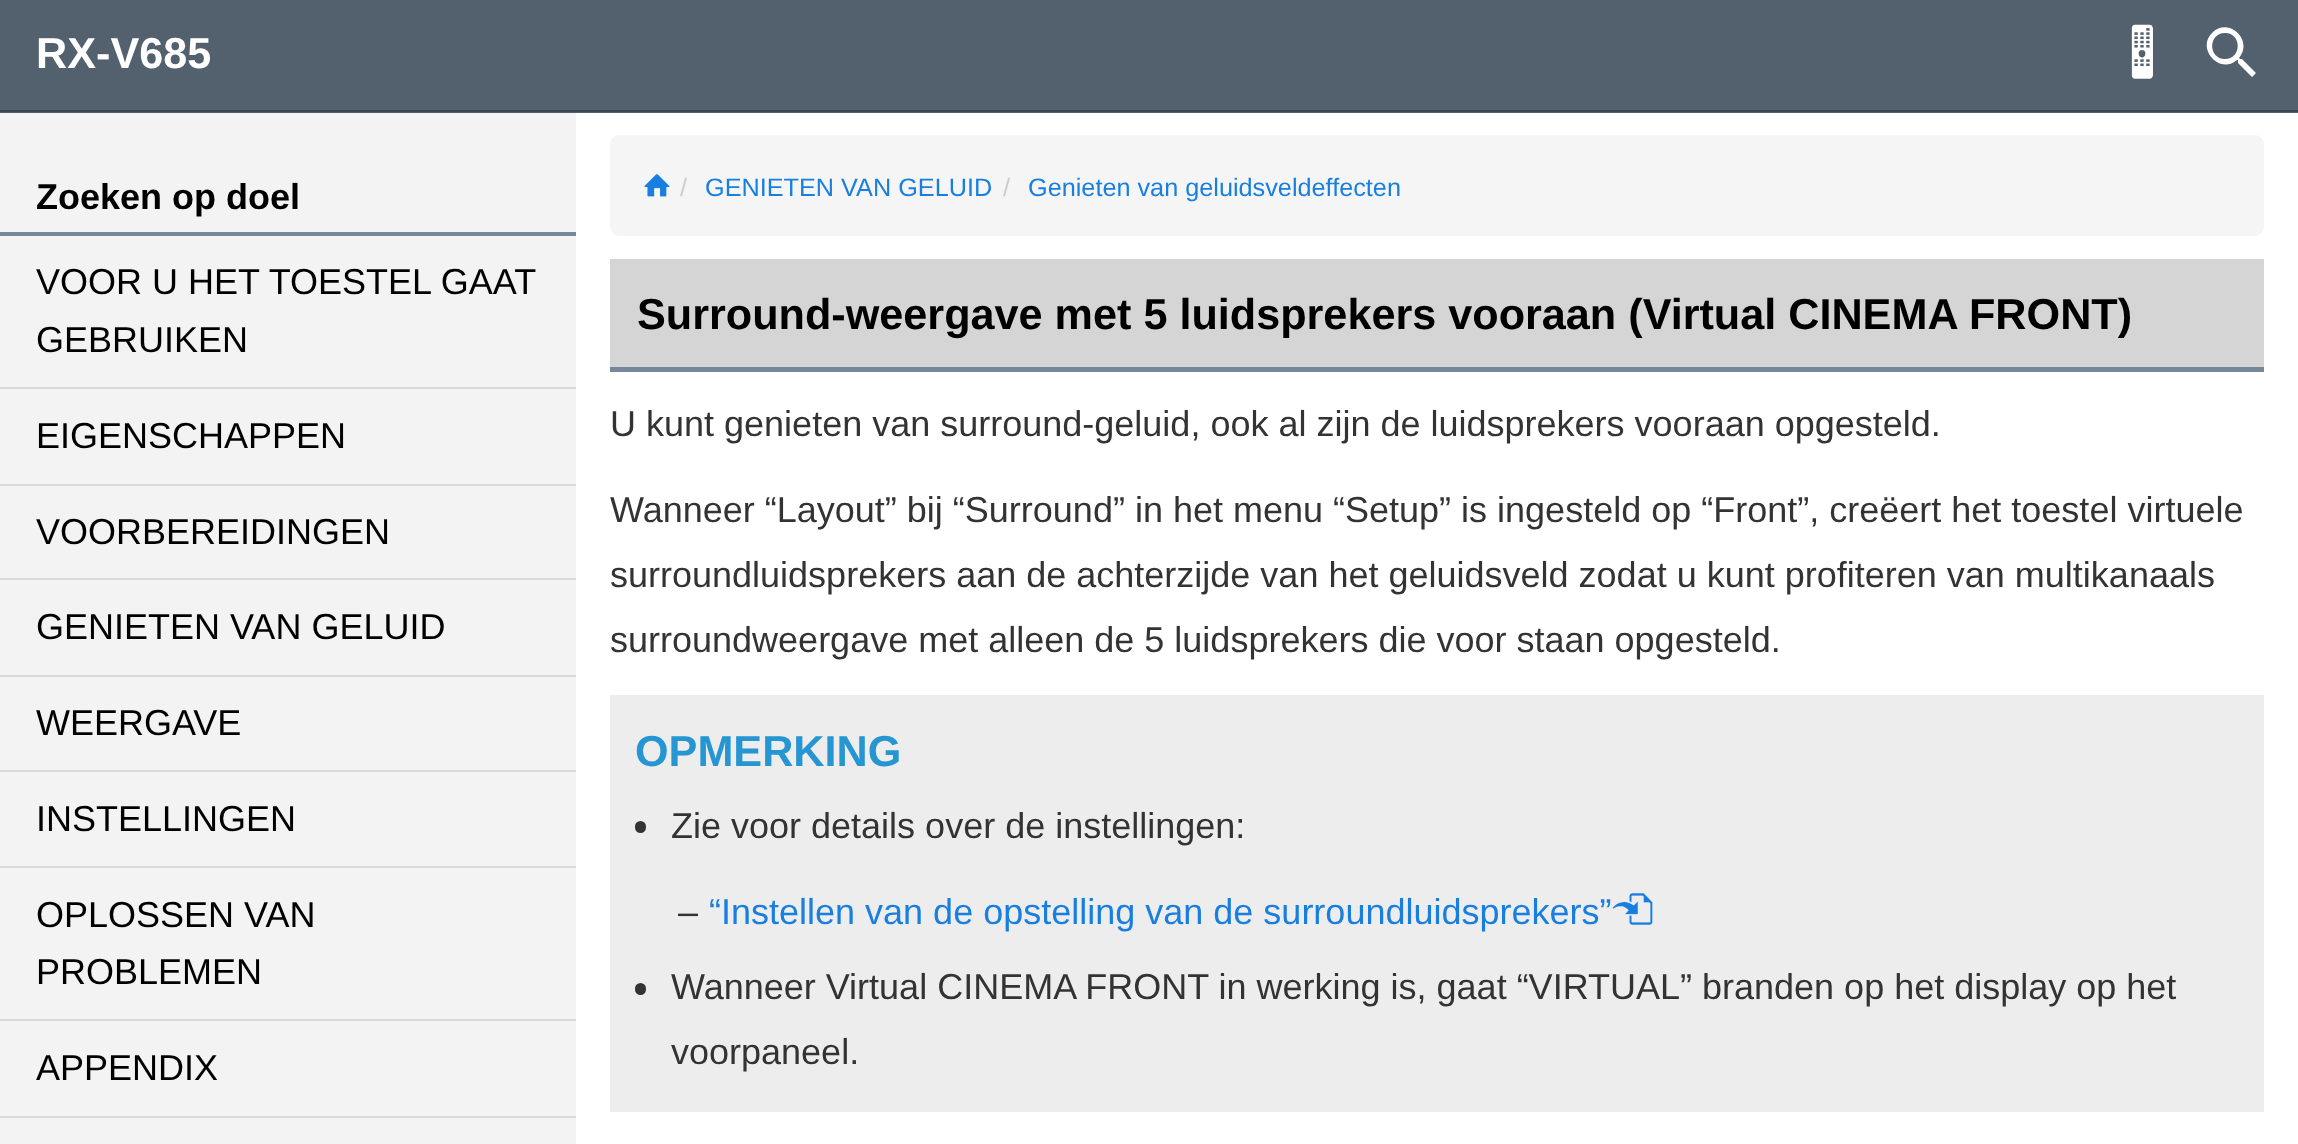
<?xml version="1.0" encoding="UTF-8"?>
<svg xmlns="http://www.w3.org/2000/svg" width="2298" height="1144">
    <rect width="100%" height="100%" fill="#FFFFFF"/>
    <rect x="0" y="0" width="2298" height="113" fill="#53606D"/>
    <rect x="0" y="110" width="2298" height="2" fill="#3A4651"/>
    <text x="36" y="68" font-family="Liberation Sans" font-size="43.2" font-weight="700" fill="#FFFFFF">RX-V685</text>
    <image x="2131" y="24" width="22" height="55" href="img_01.png"/>
    <path d="M 2242 59 H 2240 L 2239 58 C 2254 41 2229 16 2212 33 C 2196 49 2220 75 2237 60 H 2238 V 63 L 2252 77 L 2256 73 Z M 2225 59 C 2208 59 2208 33 2225 33 C 2242 33 2242 59 2225 59 Z" fill="#FFFFFF"/>
    <rect x="610" y="135" width="1654" height="101" rx="9" fill="#F5F5F5"/>
    <image x="644" y="174" width="26" height="23" href="img_02.png"/>
    <text x="680" y="196" font-family="Liberation Sans" font-size="25.25" fill="#CCCCCC">/</text>
    <text x="705" y="196" font-family="Liberation Sans" font-size="25.25" fill="#187FE0">GENIETEN VAN GELUID</text>
    <text x="1003" y="196" font-family="Liberation Sans" font-size="25.25" fill="#CCCCCC">/</text>
    <text x="1028" y="196" font-family="Liberation Sans" font-size="25.25" fill="#187FE0">Genieten van geluidsveldeffecten</text>
    <rect x="610" y="259" width="1654" height="108" fill="#D5D5D5"/>
    <rect x="610" y="367" width="1654" height="5" fill="#75879B"/>
    <text x="637" y="329" font-family="Liberation Sans" font-size="43.2" font-weight="700" fill="#000000">Surround-weergave met 5 luidsprekers vooraan (Virtual CINEMA FRONT)</text>
    <text x="610" y="436" font-family="Liberation Sans" font-size="36" fill="#333333">U kunt genieten van surround-geluid, ook al zijn de luidsprekers vooraan opgesteld.</text>
    <text font-family="Liberation Sans" font-size="36" fill="#333333">
        <tspan x="610" y="522">Wanneer “Layout” bij “Surround” in het menu “Setup” is ingesteld op “Front”, creëert het toestel virtuele</tspan>
        <tspan x="610" y="587">surroundluidsprekers aan de achterzijde van het geluidsveld zodat u kunt profiteren van multikanaals</tspan>
        <tspan x="610" y="652">surroundweergave met alleen de 5 luidsprekers die voor staan opgesteld.</tspan>
    </text>
    <rect x="610" y="695" width="1654" height="417" fill="#EDEDED"/>
    <text x="635" y="766" font-family="Liberation Sans" font-size="43.2" font-weight="700" fill="#2596D1">OPMERKING</text>
    <rect x="635" y="821" width="11" height="12" rx="5.5" fill="#333333"/>
    <text x="671" y="838" font-family="Liberation Sans" font-size="36" fill="#333333">Zie voor details over de instellingen:</text>
    <text x="678" y="924" font-family="Liberation Sans" font-size="36" fill="#333333">–</text>
    <text x="709" y="924" font-family="Liberation Sans" font-size="36" fill="#187FE0">“Instellen van de opstelling van de surroundluidsprekers”</text>
    <image x="1612" y="893" width="41" height="32" href="img_03.png"/>
    <rect x="635" y="983" width="11" height="12" rx="5.5" fill="#333333"/>
    <text font-family="Liberation Sans" font-size="36" fill="#333333">
        <tspan x="671" y="999">Wanneer Virtual CINEMA FRONT in werking is, gaat “VIRTUAL” branden op het display op het</tspan>
        <tspan x="671" y="1064">voorpaneel.</tspan>
    </text>
    <rect x="0" y="113" width="576" height="1031" fill="#F3F3F4"/>
    <rect x="0" y="232" width="576" height="4" fill="#75879B"/>
    <text x="36" y="209" font-family="Liberation Sans" font-size="36" font-weight="700" fill="#000000">Zoeken op doel</text>
    <rect x="0" y="387" width="576" height="2" fill="#D9D9D9"/>
    <text font-family="Liberation Sans" font-size="36" fill="#000000">
        <tspan x="36" y="294">VOOR U HET TOESTEL GAAT</tspan>
        <tspan x="36" y="352">GEBRUIKEN</tspan>
    </text>
    <rect x="0" y="484" width="576" height="2" fill="#D9D9D9"/>
    <text x="36" y="448" font-family="Liberation Sans" font-size="36" fill="#000000">EIGENSCHAPPEN</text>
    <rect x="0" y="578" width="576" height="2" fill="#D9D9D9"/>
    <text x="36" y="544" font-family="Liberation Sans" font-size="36" fill="#000000">VOORBEREIDINGEN</text>
    <rect x="0" y="675" width="576" height="2" fill="#D9D9D9"/>
    <text x="36" y="639" font-family="Liberation Sans" font-size="36" fill="#000000">GENIETEN VAN GELUID</text>
    <rect x="0" y="770" width="576" height="2" fill="#D9D9D9"/>
    <text x="36" y="735" font-family="Liberation Sans" font-size="36" fill="#000000">WEERGAVE</text>
    <rect x="0" y="866" width="576" height="2" fill="#D9D9D9"/>
    <text x="36" y="831" font-family="Liberation Sans" font-size="36" fill="#000000">INSTELLINGEN</text>
    <rect x="0" y="1019" width="576" height="2" fill="#D9D9D9"/>
    <text font-family="Liberation Sans" font-size="36" fill="#000000">
        <tspan x="36" y="927">OPLOSSEN VAN</tspan>
        <tspan x="36" y="984">PROBLEMEN</tspan>
    </text>
    <rect x="0" y="1116" width="576" height="2" fill="#D9D9D9"/>
    <text x="36" y="1080" font-family="Liberation Sans" font-size="36" fill="#000000">APPENDIX</text>
</svg>
